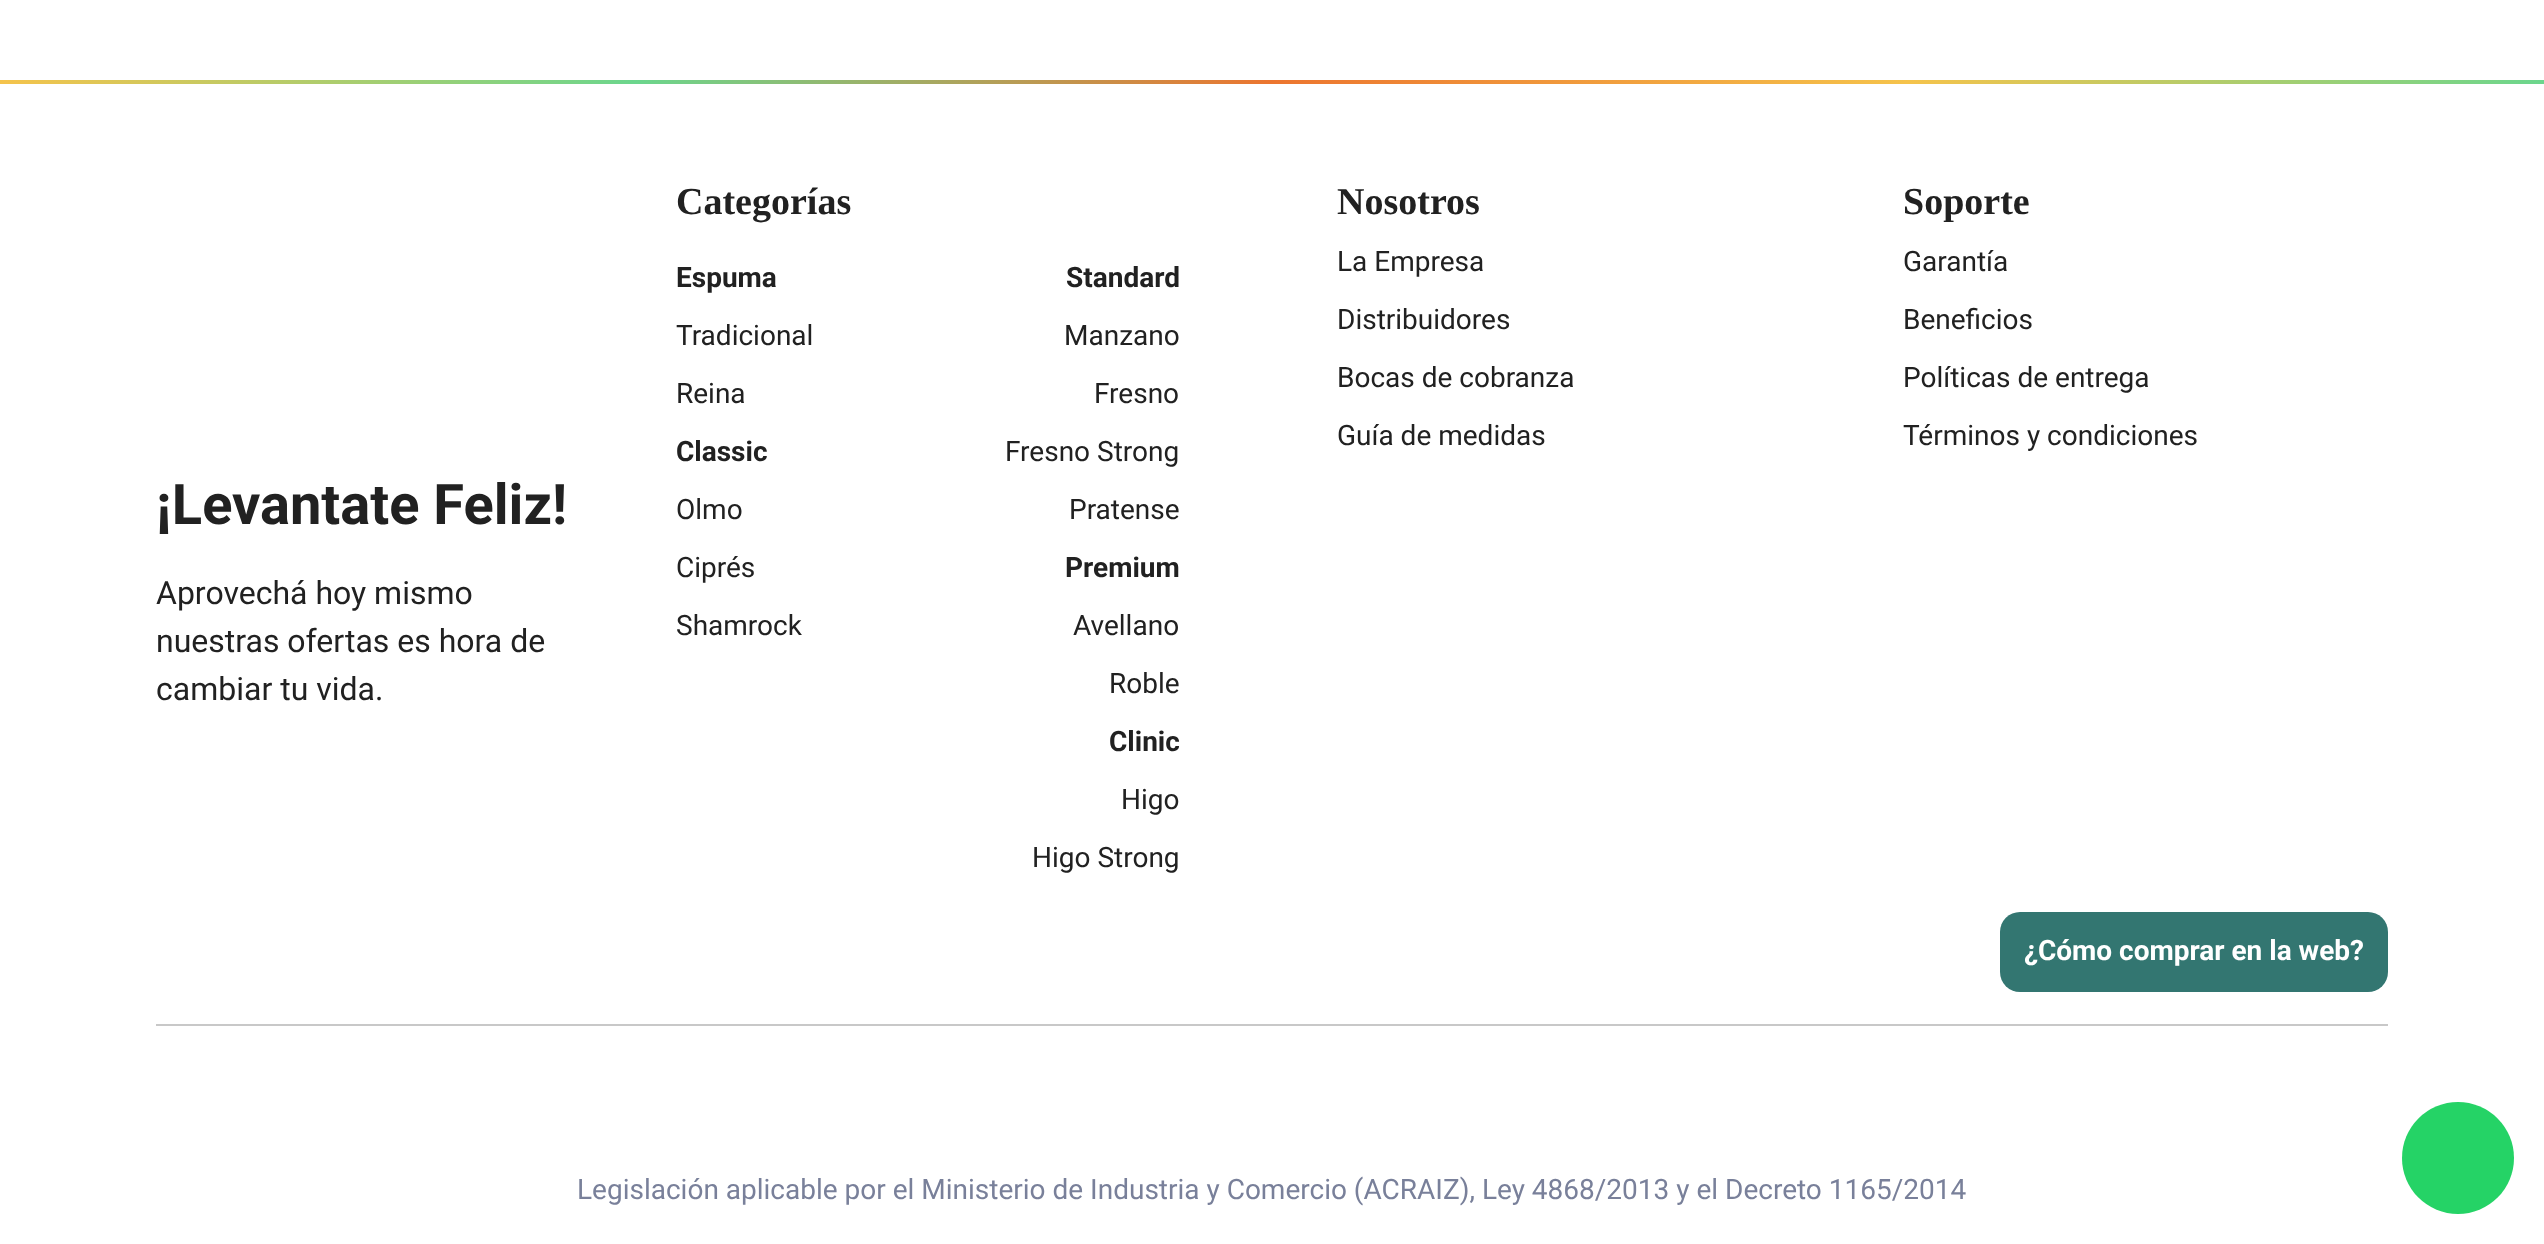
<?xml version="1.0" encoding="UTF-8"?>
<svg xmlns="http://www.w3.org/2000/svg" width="2544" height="1244">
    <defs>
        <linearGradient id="g1" gradientUnits="userSpaceOnUse" x1="0" y1="82" x2="2544" y2="82"><stop offset="0" stop-color="#F5C34B"/><stop offset="0.25" stop-color="#6BD68D"/><stop offset="0.5" stop-color="#EC752F"/><stop offset="0.75" stop-color="#F5C34B"/><stop offset="1" stop-color="#6BD68D"/></linearGradient>
    </defs>
    <rect width="100%" height="100%" fill="#FFFFFF"/>
    <rect x="0" y="80" width="2544" height="4" fill="url(#g1)"/>
    <text x="156" y="524" font-family="Roboto" font-size="56" font-weight="700" fill="#212121">¡Levantate Feliz!</text>
    <text font-family="Roboto" font-size="32" fill="#212121">
        <tspan x="156" y="604">Aprovechá hoy mismo</tspan>
        <tspan x="156" y="652">nuestras ofertas es hora de</tspan>
        <tspan x="156" y="700">cambiar tu vida.</tspan>
    </text>
    <text x="676" y="214" font-family="Liberation Serif" font-size="38" font-weight="700" fill="#212121">Categorías</text>
    <text x="676" y="287" font-family="Roboto" font-size="28" font-weight="700" fill="#212121">Espuma</text>
    <text x="676" y="345" font-family="Roboto" font-size="28" fill="#212121">Tradicional</text>
    <text x="676" y="403" font-family="Roboto" font-size="28" fill="#212121">Reina</text>
    <text x="676" y="461" font-family="Roboto" font-size="28" font-weight="700" fill="#212121">Classic</text>
    <text x="676" y="519" font-family="Roboto" font-size="28" fill="#212121">Olmo</text>
    <text x="676" y="577" font-family="Roboto" font-size="28" fill="#212121">Ciprés</text>
    <text x="676" y="635" font-family="Roboto" font-size="28" fill="#212121">Shamrock</text>
    <text x="1066" y="287" font-family="Roboto" font-size="28" font-weight="700" fill="#212121">Standard</text>
    <text x="1064" y="345" font-family="Roboto" font-size="28" fill="#212121">Manzano</text>
    <text x="1094" y="403" font-family="Roboto" font-size="28" fill="#212121">Fresno</text>
    <text x="1005" y="461" font-family="Roboto" font-size="28" fill="#212121">Fresno Strong</text>
    <text x="1069" y="519" font-family="Roboto" font-size="28" fill="#212121">Pratense</text>
    <text x="1065" y="577" font-family="Roboto" font-size="28" font-weight="700" fill="#212121">Premium</text>
    <text x="1073" y="635" font-family="Roboto" font-size="28" fill="#212121">Avellano</text>
    <text x="1109" y="693" font-family="Roboto" font-size="28" fill="#212121">Roble</text>
    <text x="1109" y="751" font-family="Roboto" font-size="28" font-weight="700" fill="#212121">Clinic</text>
    <text x="1121" y="809" font-family="Roboto" font-size="28" fill="#212121">Higo</text>
    <text x="1032" y="867" font-family="Roboto" font-size="28" fill="#212121">Higo Strong</text>
    <text x="1337" y="214" font-family="Liberation Serif" font-size="38" font-weight="700" fill="#212121">Nosotros</text>
    <text x="1337" y="271" font-family="Roboto" font-size="28" fill="#212121">La Empresa</text>
    <text x="1337" y="329" font-family="Roboto" font-size="28" fill="#212121">Distribuidores</text>
    <text x="1337" y="387" font-family="Roboto" font-size="28" fill="#212121">Bocas de cobranza</text>
    <text x="1337" y="445" font-family="Roboto" font-size="28" fill="#212121">Guía de medidas</text>
    <text x="1903" y="214" font-family="Liberation Serif" font-size="38" font-weight="700" fill="#212121">Soporte</text>
    <text x="1903" y="271" font-family="Roboto" font-size="28" fill="#212121">Garantía</text>
    <text x="1903" y="329" font-family="Roboto" font-size="28" fill="#212121">Beneficios</text>
    <text x="1903" y="387" font-family="Roboto" font-size="28" fill="#212121">Políticas de entrega</text>
    <text x="1903" y="445" font-family="Roboto" font-size="28" fill="#212121">Términos y condiciones</text>
    <rect x="2000" y="912" width="388" height="80" rx="20" fill="#337671"/>
    <text x="2024" y="960" font-family="Roboto" font-size="28" font-weight="700" fill="#FFFFFF">¿Cómo comprar en la web?</text>
    <rect x="156" y="1024" width="2232" height="2" fill="#C8C8C8"/>
    <text x="577" y="1199" font-family="Roboto" font-size="28" fill="#79809A">Legislación aplicable por el Ministerio de Industria y Comercio (ACRAIZ), Ley 4868/2013 y el Decreto 1165/2014</text>
    <circle cx="2458" cy="1158" r="56" fill="#25D366"/>
</svg>
